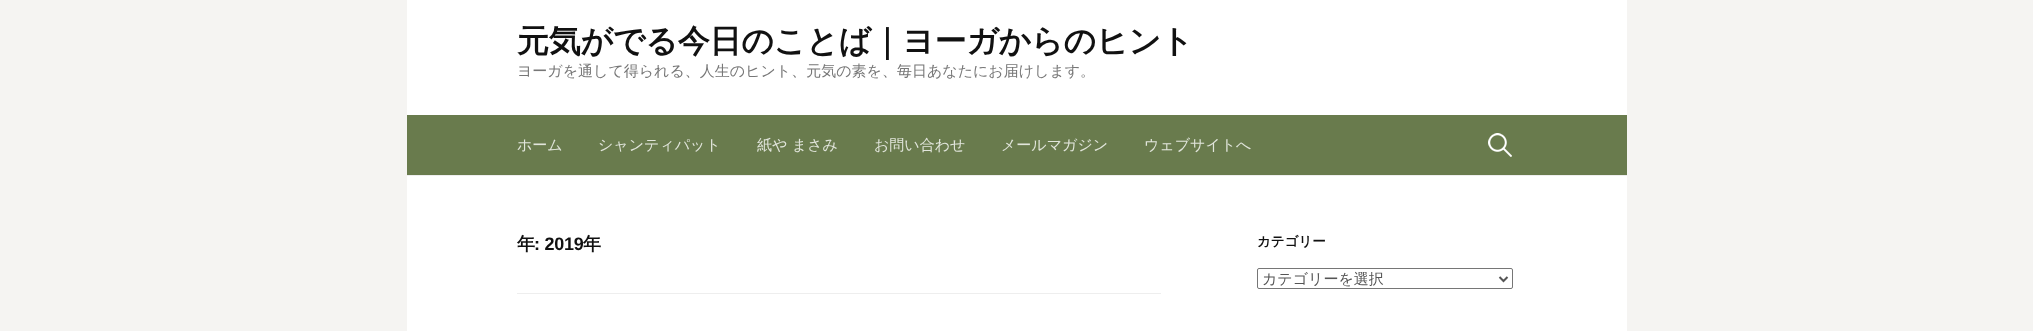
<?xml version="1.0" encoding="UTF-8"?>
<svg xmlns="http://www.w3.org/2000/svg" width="2033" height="331">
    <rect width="100%" height="100%" fill="#F5F4F2"/>
    <rect x="407" y="0" width="1220" height="331" fill="#FFFFFF"/>
    <rect x="407" y="175" width="1220" height="1" fill="#EEEEEE"/>
    <text x="517" y="52" font-family="WenQuanYi Zen Hei" font-size="32" font-weight="700" letter-spacing="-0.3" fill="#111111">元気がでる今日のことば｜ヨーガからのヒント</text>
    <text x="517" y="76" font-family="WenQuanYi Zen Hei" font-size="15" font-weight="500" fill="#777777">ヨーガを通して得られる、人生のヒント、元気の素を、毎日あなたにお届けします。</text>
    <rect x="407" y="115" width="1220" height="60" fill="#697B4D"/>
    <text x="517" y="150" font-family="WenQuanYi Zen Hei" font-size="15" font-weight="500" fill="#E1E5DB">ホーム</text>
    <text x="598" y="150" font-family="WenQuanYi Zen Hei" font-size="15" font-weight="500" fill="#E1E5DB">シャンティパット</text>
    <text x="757" y="150" font-family="WenQuanYi Zen Hei" font-size="15" font-weight="500" fill="#E1E5DB">紙や まさみ</text>
    <text x="874" y="150" font-family="WenQuanYi Zen Hei" font-size="15" font-weight="500" fill="#E1E5DB">お問い合わせ</text>
    <text x="1001" y="150" font-family="WenQuanYi Zen Hei" font-size="15" font-weight="500" fill="#E1E5DB">メールマガジン</text>
    <text x="1144" y="150" font-family="WenQuanYi Zen Hei" font-size="15" font-weight="500" fill="#E1E5DB">ウェブサイトへ</text>
    <image x="1488" y="133" width="24" height="24" href="img_01.png"/>
    <rect x="517" y="293" width="644" height="1" fill="#EEEEEE"/>
    <text x="517" y="250" font-family="WenQuanYi Zen Hei" font-size="18" font-weight="700" letter-spacing="-0.25" fill="#111111">年</text>
    <text x="534" y="250" font-family="Liberation Sans" font-size="18" font-weight="700" letter-spacing="-0.25" fill="#111111">: 2019</text>
    <text x="583" y="250" font-family="WenQuanYi Zen Hei" font-size="18" font-weight="700" letter-spacing="-0.25" fill="#111111">年</text>
    <text x="1257" y="246" font-family="WenQuanYi Zen Hei" font-size="13.5" font-weight="700" fill="#111111">カテゴリー</text>
    <rect x="1257.5" y="268.5" width="255" height="20" rx="1.5" fill="none" stroke="#767676"/>
    <path d="M 1499.5 277 L 1503.5 281 L 1507.5 277" fill="none" stroke="#555555" stroke-width="2"/>
    <text x="1262" y="284" font-family="WenQuanYi Zen Hei" font-size="15" font-weight="500" fill="#555555">カテゴリーを選択</text>
</svg>
